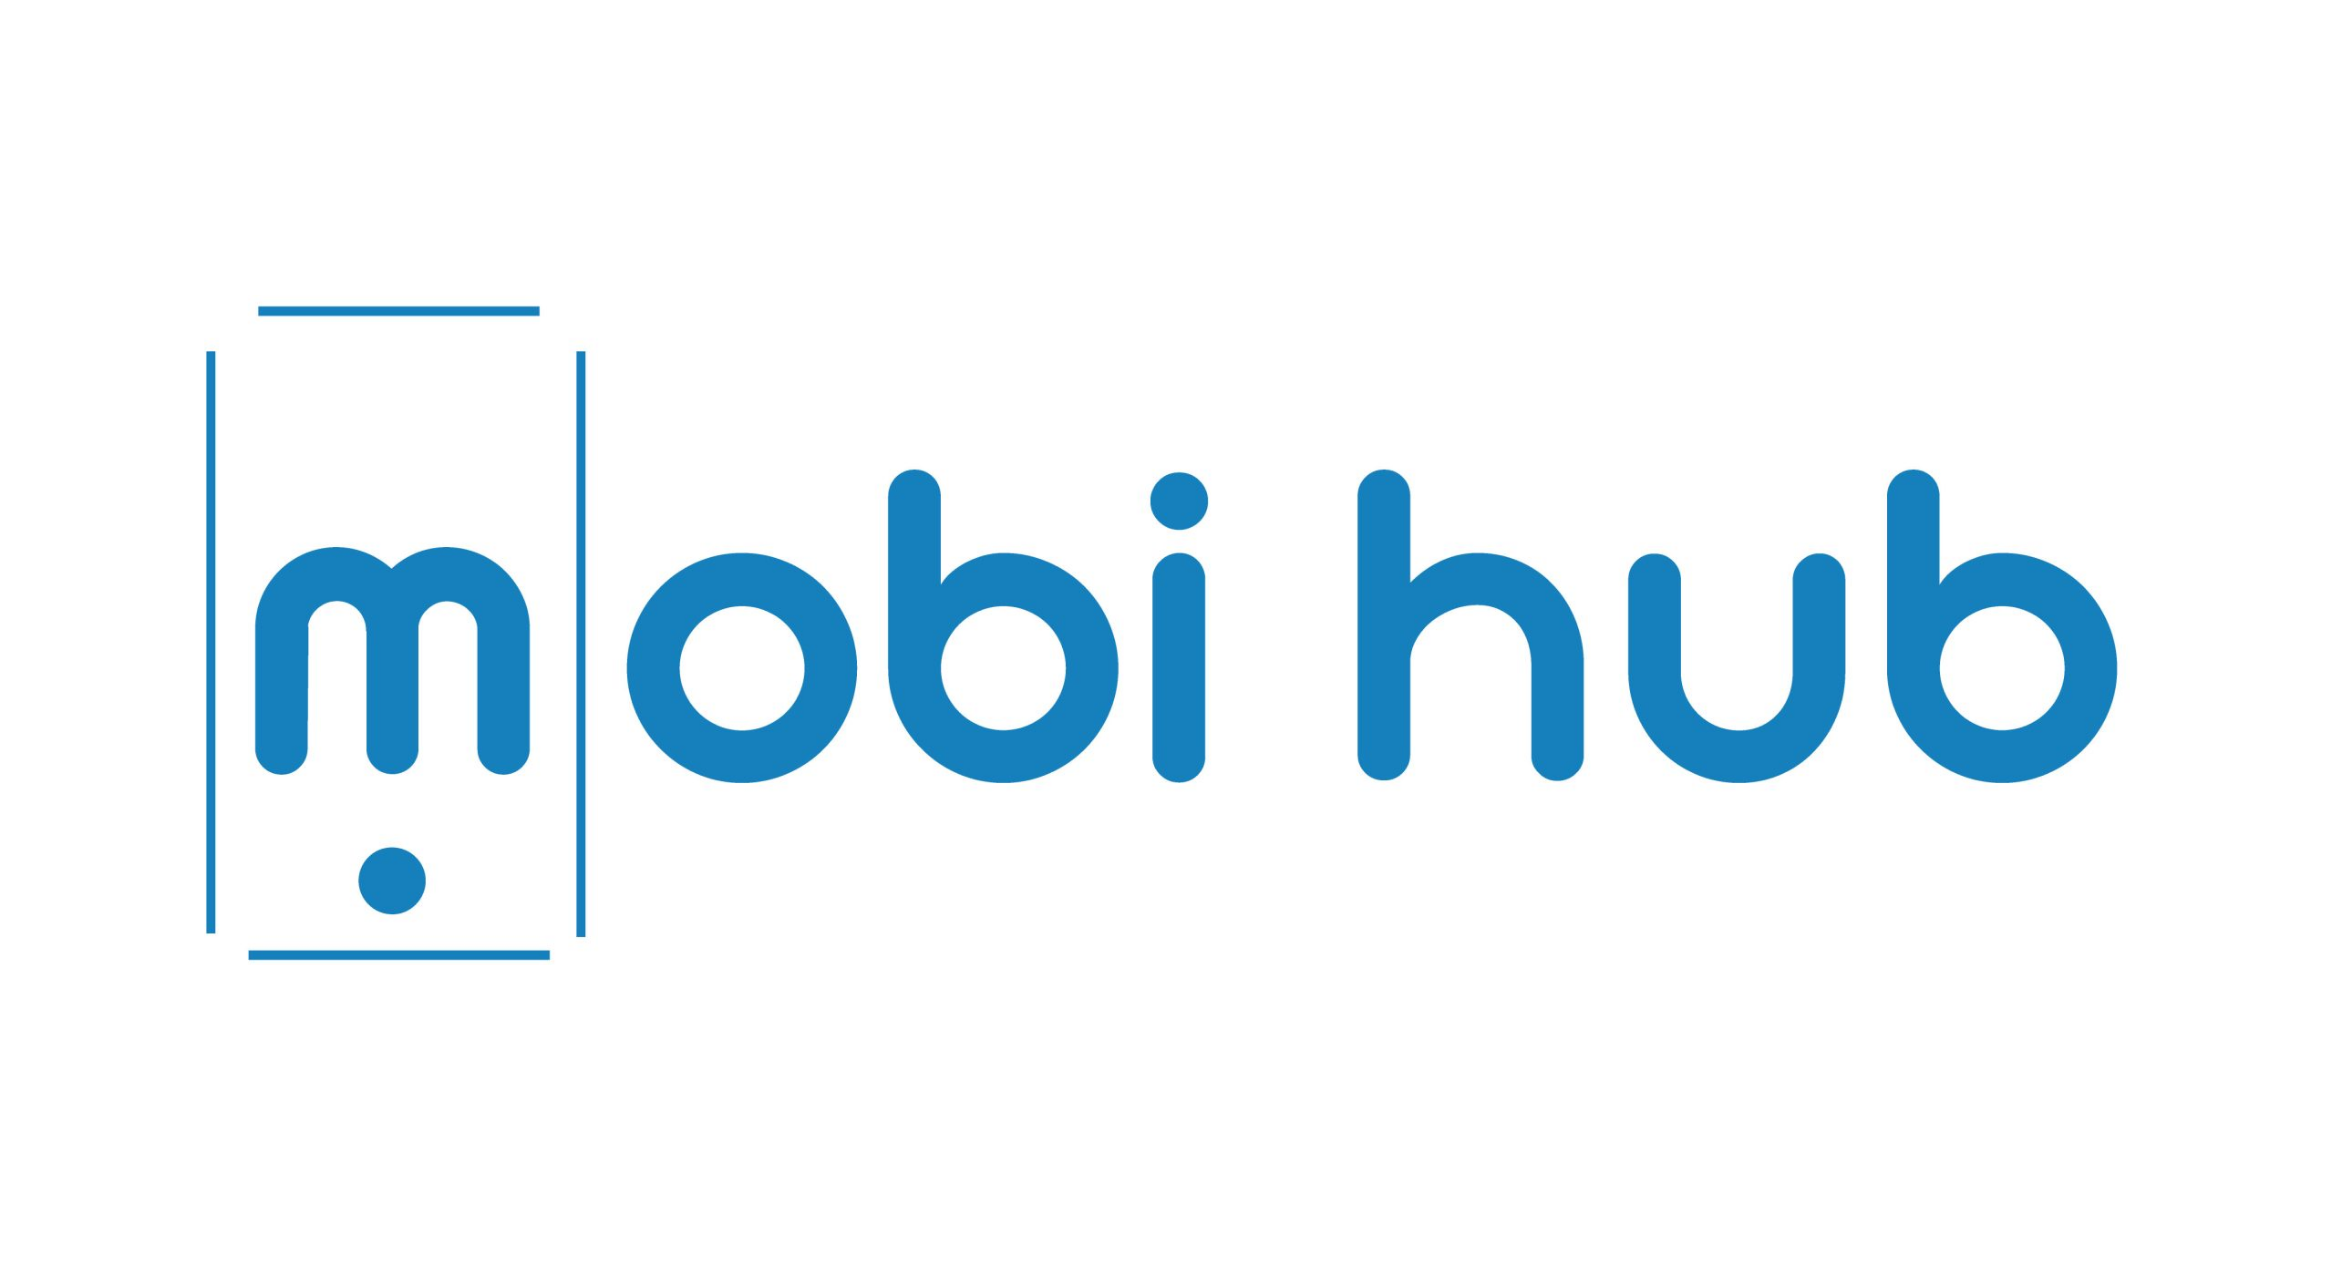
<?xml version="1.0" encoding="UTF-8"?>
<svg xmlns="http://www.w3.org/2000/svg" width="2333" height="1266">
    <rect width="100%" height="100%" fill="#FFFFFF"/>
    <image x="204" y="295" width="1926" height="670" href="img_01.png"/>
</svg>
